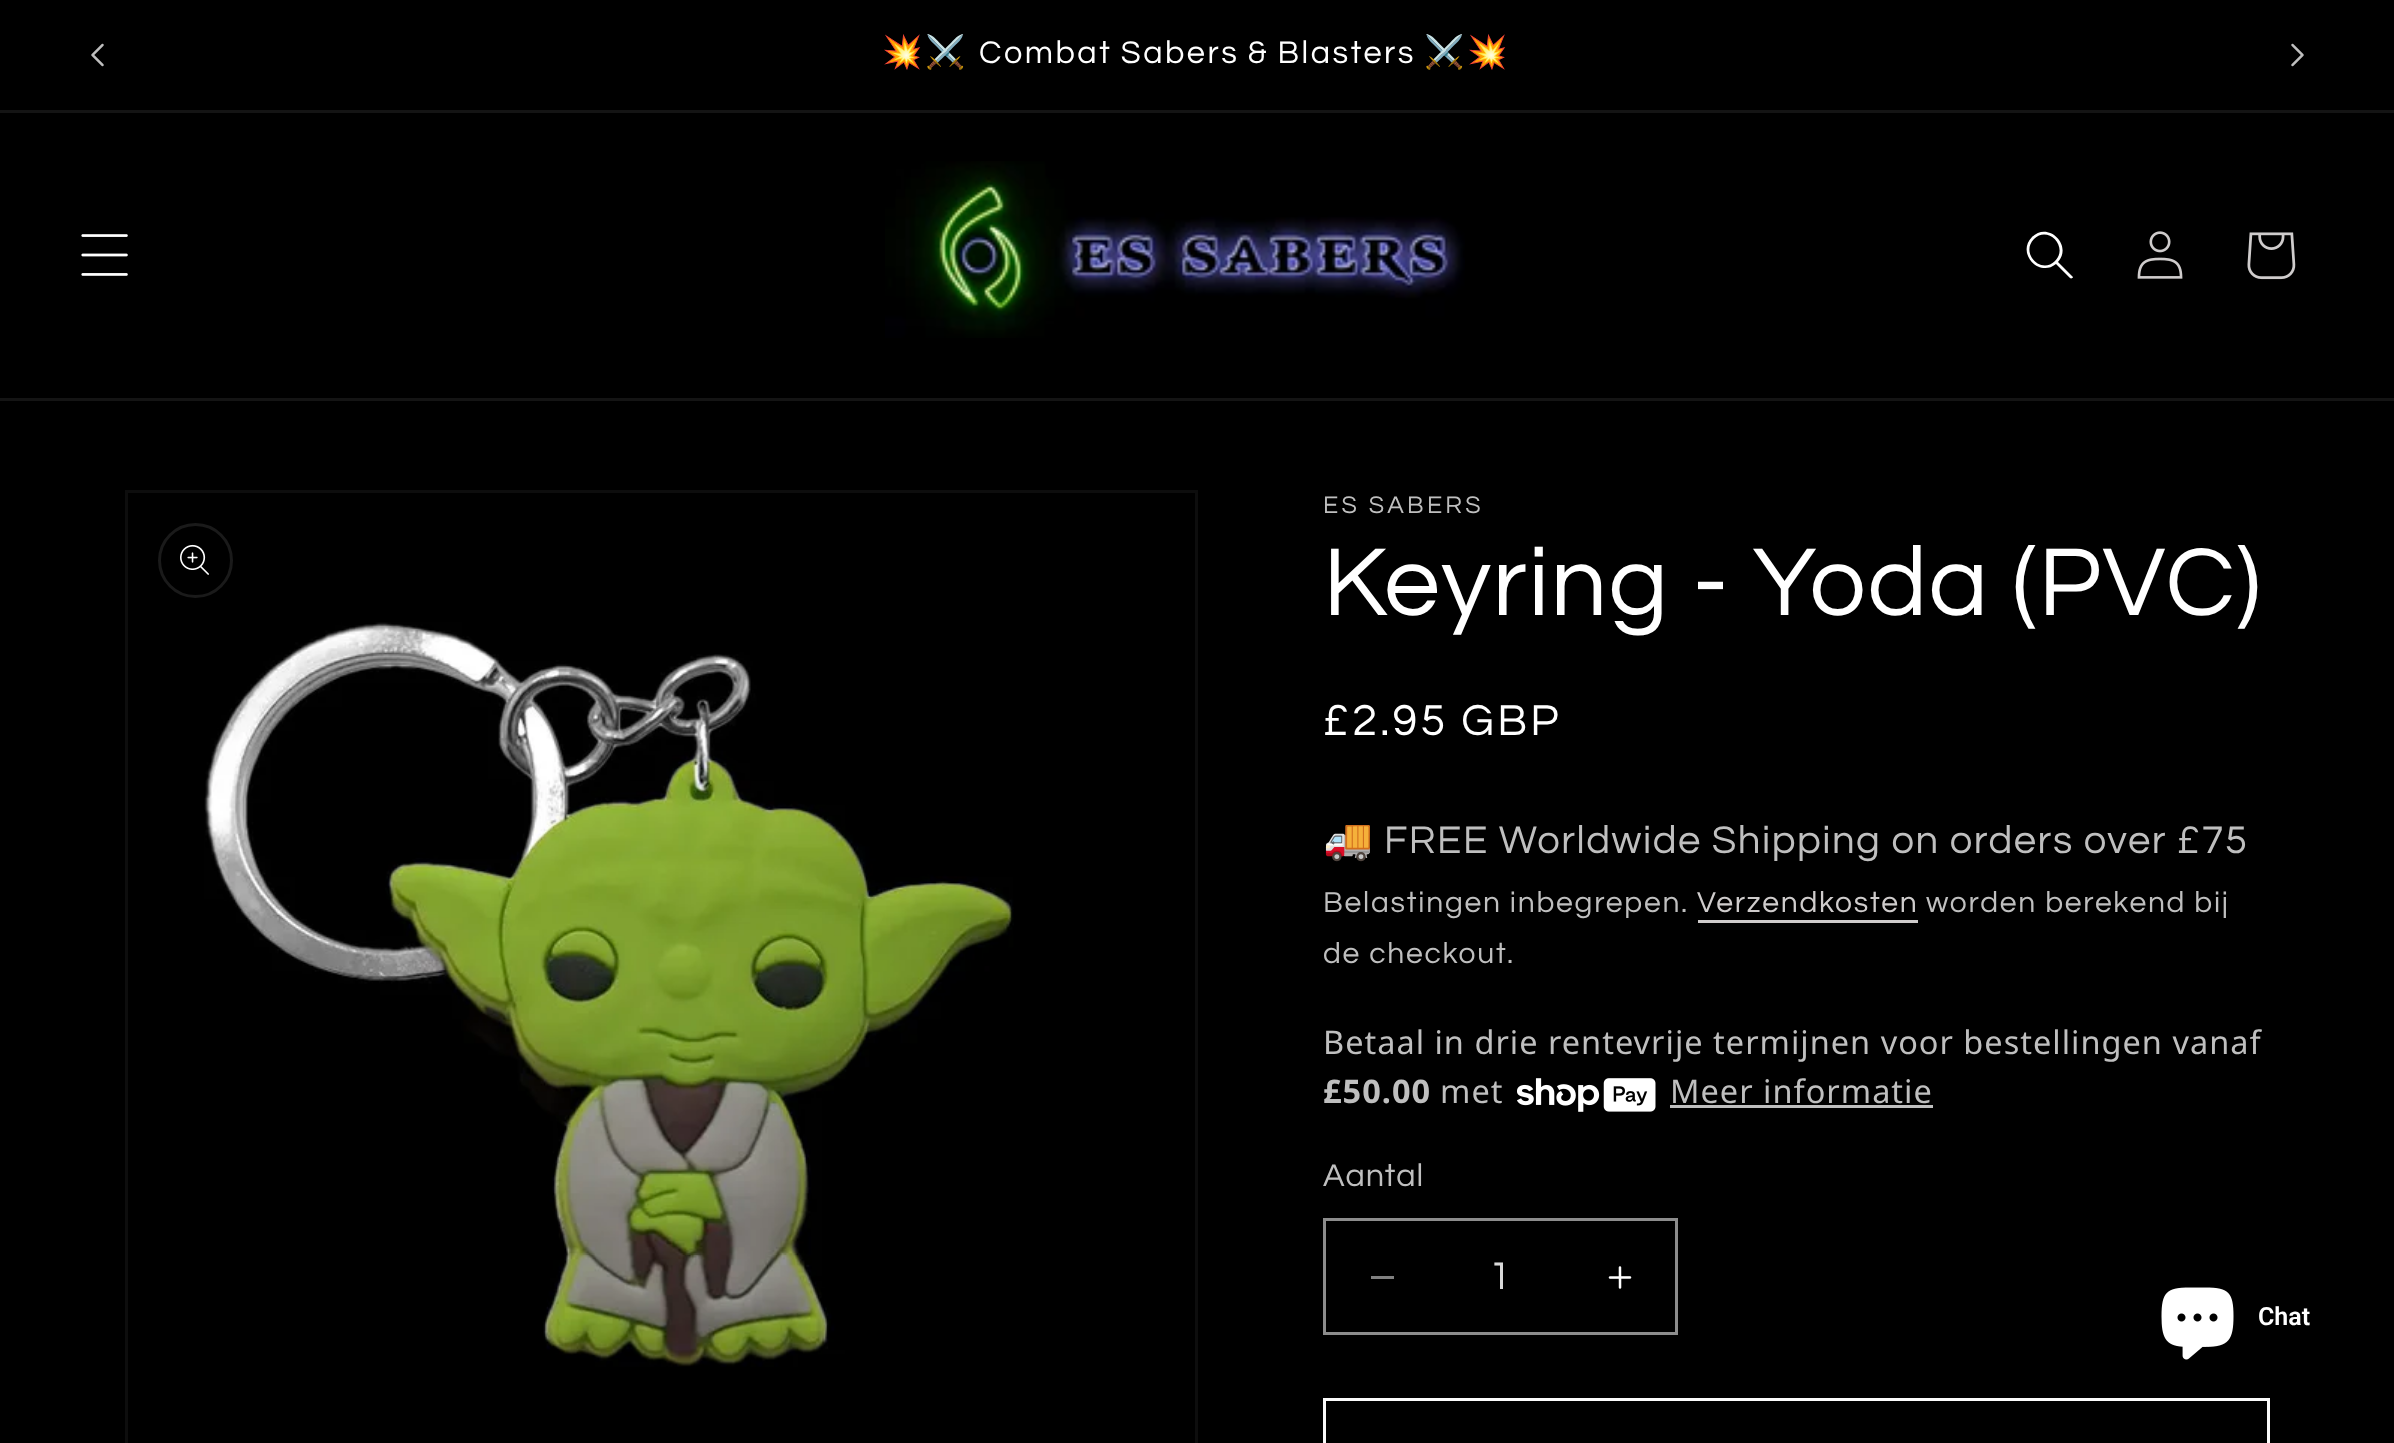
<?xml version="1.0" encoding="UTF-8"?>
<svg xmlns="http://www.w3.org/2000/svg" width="2394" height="1443">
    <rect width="100%" height="100%" fill="#000000"/>
    <rect x="0" y="110" width="2394" height="3" fill="#141414"/>
    <image x="91" y="43" width="13" height="24" href="img_01.png"/>
    <text x="882" y="63" font-family="Noto Color Emoji" font-size="32.5" letter-spacing="2.5" fill="#FFFFFF">💥⚔️</text>
    <text x="979" y="63" word-spacing="-1" font-family="Questrial" font-size="32.5" letter-spacing="2.5" fill="#FFFFFF">Combat Sabers &amp; Blasters</text>
    <text x="1424" y="63" font-family="Noto Color Emoji" font-size="32.5" letter-spacing="2.5" fill="#FFFFFF">⚔️💥</text>
    <image x="2291" y="43" width="13" height="24" href="img_02.png"/>
    <rect x="0" y="398" width="2394" height="3" fill="#141414"/>
    <image x="81" y="234" width="47" height="42" href="img_03.png"/>
    <image x="885" y="161" width="580" height="177" href="img_04.png"/>
    <path d="M 2055 261 C 2041 275 2020 253 2034 239 C 2048 225 2069 247 2055 261 M 2056 264 C 2039 278 2016 253 2032 237 C 2048 221 2073 245 2058 262 L 2073 277 C 2073 278 2071 279 2070 278 Z" fill="#FFFFFF" fill-rule="evenodd"/>
    <image x="2137" y="231" width="46" height="48" href="img_05.png"/>
    <image x="2247" y="232" width="49" height="48" href="img_06.png"/>
    <rect x="126.5" y="491.5" width="1070" height="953" fill="none" stroke="#0D0D0D" stroke-width="3"/>
    <circle cx="195.5" cy="560.5" r="36" fill="none" stroke="#1A1A1A" stroke-width="3"/>
    <image x="180" y="544" width="29" height="31" href="img_07.png"/>
    <image x="204" y="622" width="810" height="745" href="img_08.png"/>
    <text x="1323" y="513" font-family="Questrial" font-size="25" letter-spacing="3.25" fill="#BFBFBF">ES SABERS</text>
    <text x="1323" y="615" font-family="Questrial" font-size="100" letter-spacing="1.5" fill="#FFFFFF">Keyring - Yoda (PVC)</text>
    <text x="1323" y="735" font-family="Questrial" font-size="45" letter-spacing="3.25" fill="#FFFFFF">£2.95 GBP</text>
    <text x="1323" y="853" font-family="Noto Color Emoji" font-size="40" letter-spacing="1.5" fill="#BFBFBF">🚚</text>
    <text x="1384" y="853" font-family="Questrial" font-size="40" letter-spacing="1.5" fill="#BFBFBF">FREE Worldwide Shipping on orders over £75</text>
    <text x="1323" y="912" font-family="Questrial" font-size="30" letter-spacing="1.75" fill="#BFBFBF">Belastingen inbegrepen.</text>
    <text x="1697" y="912" font-family="Questrial" font-size="30" letter-spacing="1.75" fill="#CFCCCC">Verzendkosten</text>
    <rect x="1698" y="920" width="220" height="3" fill="#CFCCCC"/>
    <text x="1926" y="912" font-family="Questrial" font-size="30" letter-spacing="1.75" fill="#BFBFBF">worden berekend bij</text>
    <text x="1323" y="963" font-family="Questrial" font-size="30" letter-spacing="1.75" fill="#BFBFBF">de checkout.</text>
    <text x="1323" y="1054" font-family="Noto Sans" font-size="32.5" letter-spacing="1" fill="#BFBFBF">Betaal in drie rentevrije termijnen voor bestellingen vanaf</text>
    <text x="1323" y="1103" font-family="Noto Sans" font-size="32.5" font-weight="700" letter-spacing="1" fill="#BFBFBF">£50.00</text>
    <text x="1440" y="1103" font-family="Noto Sans" font-size="32.5" letter-spacing="1" fill="#BFBFBF">met</text>
    <image x="1517" y="1078" width="139" height="34" href="img_09.png"/>
    <text x="1670" y="1103" font-family="Noto Sans" font-size="32.5" letter-spacing="1" fill="#BFBFBF">Meer informatie</text>
    <rect x="1670" y="1105" width="263" height="3" fill="#BFBFBF"/>
    <text x="1323" y="1186" font-family="Questrial" font-size="32.5" letter-spacing="1" fill="#BFBFBF">Aantal</text>
    <rect x="1371" y="1276" width="23" height="3" fill="#808080"/>
    <image x="1608" y="1266" width="24" height="23" href="img_10.png"/>
    <rect x="1324.5" y="1219.5" width="352" height="114" fill="none" stroke="#8C8C8C" stroke-width="3"/>
    <text x="1489" y="1289" font-family="Questrial" font-size="40" fill="#D9D9D9">1</text>
    <rect x="1324.5" y="1399.5" width="944" height="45" fill="none" stroke="#FAFAFA" stroke-width="3"/>
    <image x="2161" y="1287" width="73" height="73" href="img_11.png"/>
    <text x="2258" y="1325" font-family="Roboto" font-size="25" font-weight="600" fill="#FFFFFF">Chat</text>
</svg>
